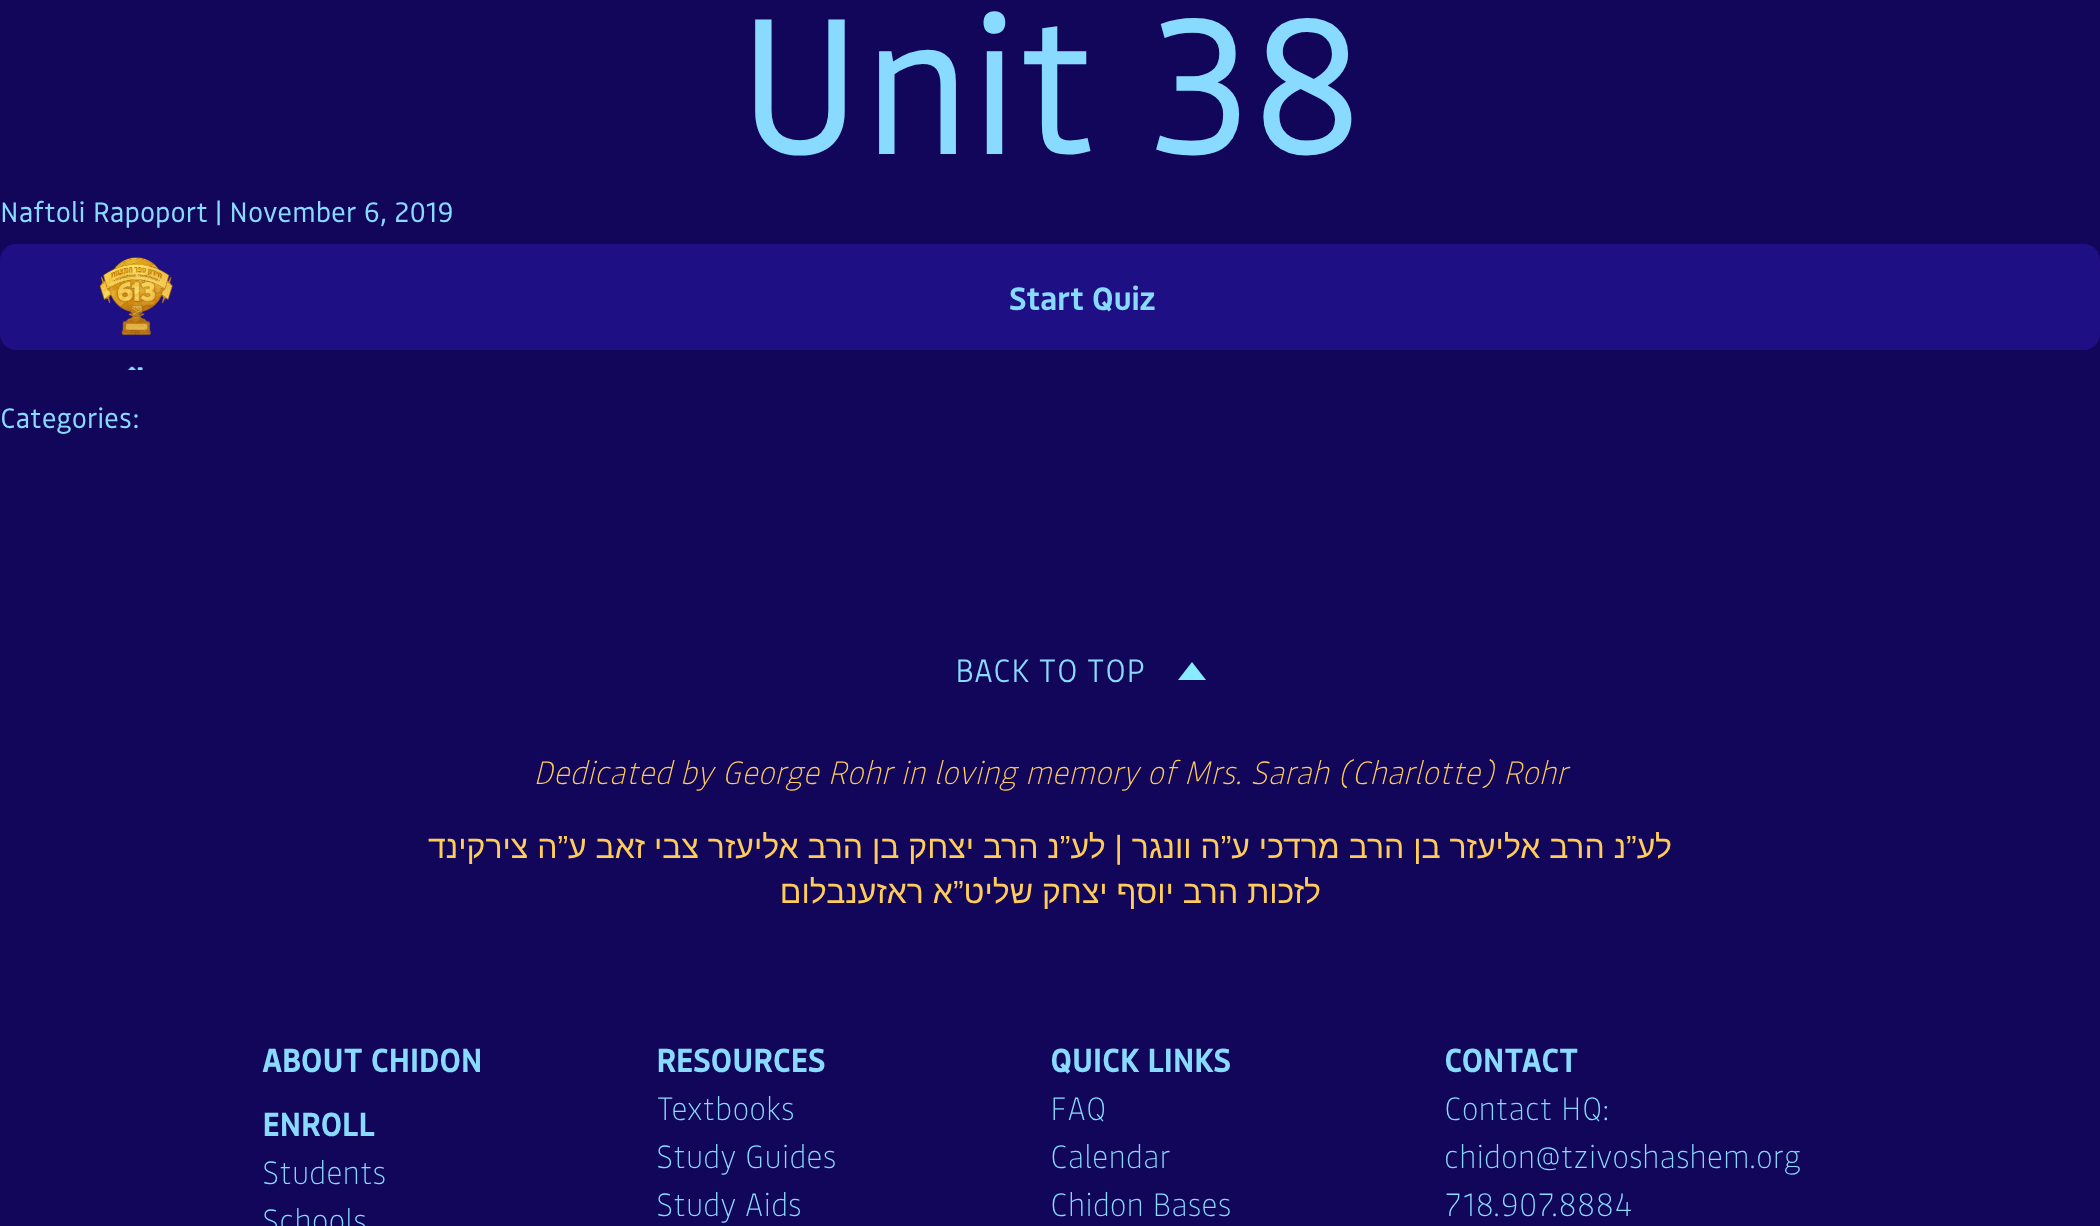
<?xml version="1.0" encoding="UTF-8"?>
<svg xmlns="http://www.w3.org/2000/svg" width="2100" height="1226">
    <rect width="100%" height="100%" fill="#12065B"/>
    <text x="736" y="154" font-family="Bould" font-size="192" fill="#88DBFF">Unit 38</text>
    <text x="0" y="222" font-family="Bould" font-size="28" fill="#88DBFF">Naftoli Rapoport | November 6, 2019</text>
    <rect x="0" y="244" width="2100" height="106" rx="16" fill="#1F0F84"/>
    <text x="1009" y="310" font-family="Bould" font-size="32" font-weight="600" fill="#88DBFF">Start Quiz</text>
    <text x="0" y="428" font-family="Bould" font-size="28" fill="#88DBFF">Categories:</text>
    <image x="99" y="257" width="74" height="79" href="img_01.png"/>
    <image x="127" y="366" width="16" height="4" href="img_02.png"/>
    <text x="955" y="682" font-family="Bould" font-size="32" font-weight="300" fill="#88DBFF">BACK TO TOP</text>
    <path d="M 1206 680 H 1178 L 1192 662 Z" fill="#88EBFF"/>
    <text x="533" y="784" font-family="Bould" font-size="32" font-weight="200" font-style="italic" fill="#FFCC5A">Dedicated by George Rohr in loving memory of Mrs. Sarah (Charlotte) Rohr</text>
    <text x="1672" y="858" font-family="Liberation Sans" font-size="32" direction="rtl" fill="#FFCC5A">לע”נ הרב אליעזר בן הרב מרדכי ע”ה וונגר | לע”נ הרב יצחק בן הרב אליעזר צבי זאב ע”ה צירקינד</text>
    <text x="1321" y="903" font-family="Liberation Sans" font-size="32" direction="rtl" fill="#FFCC5A">לזכות הרב יוסף יצחק שליט”א ראזענבלום</text>
    <text x="262" y="1072" font-family="Bould" font-size="32" font-weight="700" fill="#88DBFF">ABOUT CHIDON</text>
    <text x="656" y="1072" font-family="Bould" font-size="32" font-weight="700" fill="#88DBFF">RESOURCES</text>
    <text font-family="Bould" font-size="32" font-weight="200" fill="#88DBFF">
        <tspan x="656" y="1120">Textbooks</tspan>
        <tspan x="656" y="1168">Study Guides</tspan>
        <tspan x="656" y="1216">Study Aids</tspan>
    </text>
    <text x="1050" y="1072" font-family="Bould" font-size="32" font-weight="700" fill="#88DBFF">QUICK LINKS</text>
    <text font-family="Bould" font-size="32" font-weight="200" fill="#88DBFF">
        <tspan x="1050" y="1120">FAQ</tspan>
        <tspan x="1050" y="1168">Calendar</tspan>
        <tspan x="1050" y="1216">Chidon Bases</tspan>
    </text>
    <text x="1444" y="1072" font-family="Bould" font-size="32" font-weight="700" fill="#88DBFF">CONTACT</text>
    <text font-family="Bould" font-size="32" font-weight="200" fill="#88DBFF">
        <tspan x="1444" y="1120">Contact HQ:</tspan>
        <tspan x="1444" y="1168">chidon@tzivoshashem.org</tspan>
        <tspan x="1444" y="1216">718.907.8884</tspan>
    </text>
    <text x="262" y="1136" font-family="Bould" font-size="32" font-weight="700" fill="#88DBFF">ENROLL</text>
    <text font-family="Bould" font-size="32" font-weight="200" fill="#88DBFF">
        <tspan x="262" y="1184">Students</tspan>
        <tspan x="262" y="1232">Schools</tspan>
    </text>
</svg>
